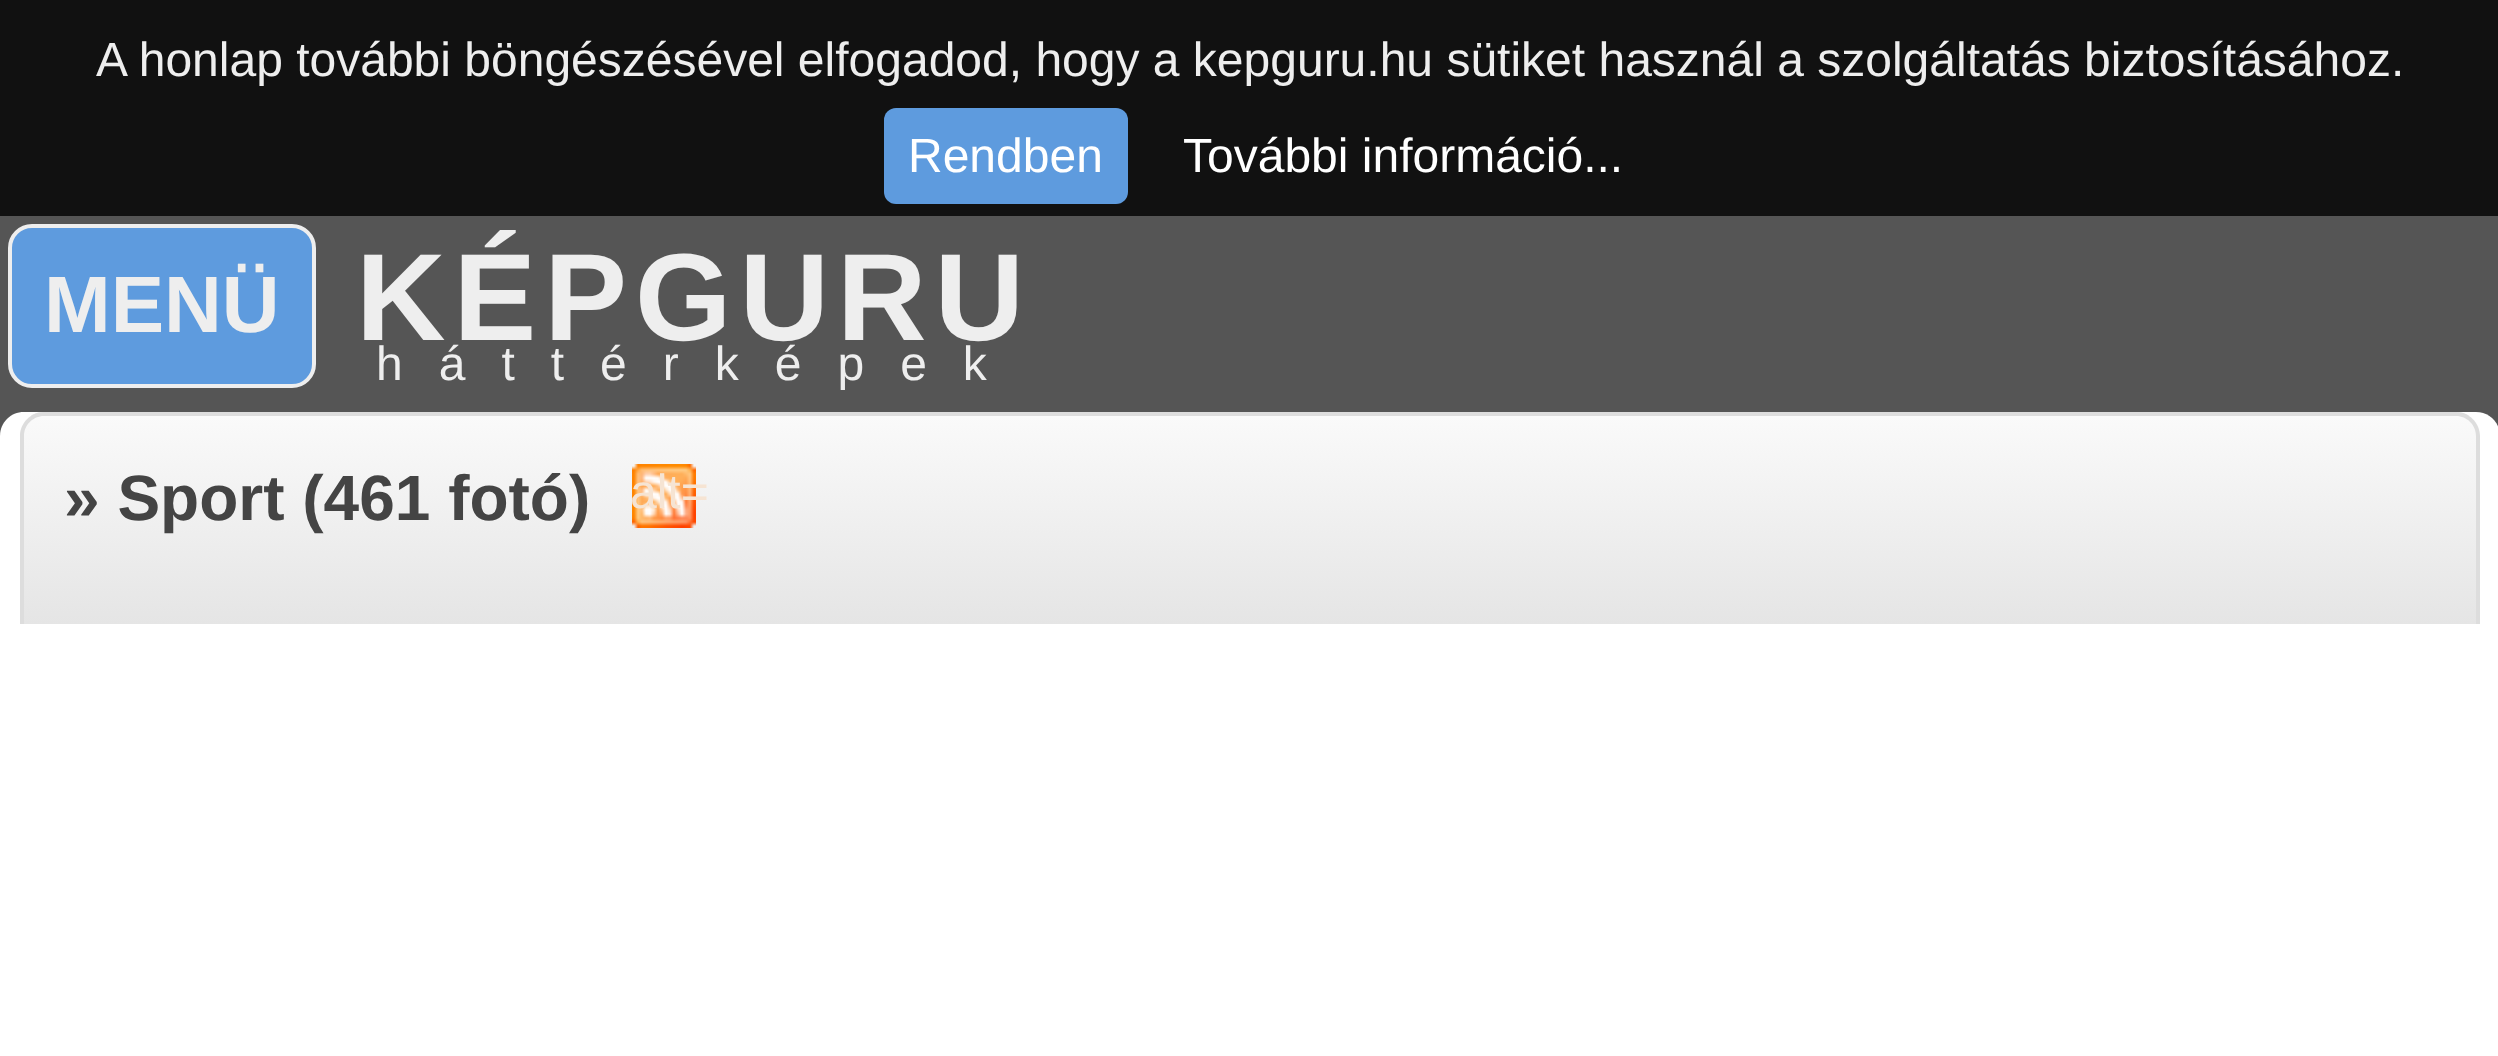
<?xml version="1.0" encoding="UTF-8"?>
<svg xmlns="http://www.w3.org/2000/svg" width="2498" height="1056">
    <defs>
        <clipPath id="clip1"><path d="M 44 412 H 2456 C 2469.5 412 2480 422.5 2480 436 V 624 H 20 V 436 C 20 422.5 30.5 412 44 412 Z"/></clipPath>
        <linearGradient id="g1" gradientUnits="userSpaceOnUse" x1="1250" y1="208" x2="1250" y2="416"><stop offset="0" stop-color="#FAFAFA"/><stop offset="1" stop-color="#E5E5E5"/></linearGradient>
        <linearGradient id="g2" gradientUnits="userSpaceOnUse" x1="1250" y1="416" x2="1250" y2="624"><stop offset="0" stop-color="#FAFAFA"/><stop offset="1" stop-color="#E5E5E5"/></linearGradient>
    </defs>
    <rect width="100%" height="100%" fill="#555555"/>
    <rect x="0" y="0" width="2498" height="216" fill="#111111"/>
    <text x="96" y="76" font-family="Liberation Sans" font-size="48" fill="#EEEEEE">A honlap további böngészésével elfogadod, hogy a kepguru.hu sütiket használ a szolgáltatás biztosításához.</text>
    <rect x="884" y="108" width="244" height="96" rx="12" fill="#5E9BDE"/>
    <text x="908" y="172" font-family="Liberation Sans" font-size="48" fill="#FFFFFF">Rendben</text>
    <text x="1183" y="172" font-family="Liberation Sans" font-size="48" fill="#FFFFFF">További információ...</text>
    <rect x="10" y="226" width="304" height="160" rx="22" fill="#5E9BDE" stroke="#EEEEEE" stroke-width="4"/>
    <text x="44" y="332" font-family="Liberation Sans" font-size="80" font-weight="700" fill="#EEEEEE">MENÜ</text>
    <text x="356" y="340" font-family="Liberation Sans" font-size="124" font-weight="700" letter-spacing="8" fill="#EEEEEE">KÉPGURU</text>
    <text x="376" y="380" font-family="Liberation Sans" font-size="48" letter-spacing="36" fill="#EEEEEE">háttérképek</text>
    <path d="M 24 412 H 2476 C 2489.5 412 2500 422.5 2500 436 V 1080 H 0 V 436 C 0 422.5 10.5 412 24 412 Z" fill="#FFFFFF"/>
    <g clip-path="url(#clip1)">
        <rect x="31" y="412" width="2439" height="4" fill="url(#g1)"/>
        <rect x="20" y="416" width="2460" height="208" fill="url(#g2)"/>
    </g>
    <path d="M 44 412 H 2456 C 2469 412 2480 423 2480 436 V 624 H 20 V 436 C 20 423 31 412 44 412 Z M 44 416 H 2456 C 2467 416 2476 425 2476 436 V 624 H 24 V 436 C 24 425 33 416 44 416 Z" fill="#DDDDDD" fill-rule="evenodd"/>
    <text x="64" y="520" font-family="Liberation Sans" font-size="64" font-weight="700" fill="#444444">» Sport (461 fotó)</text>
    <image x="632" y="464" width="64" height="64" href="img_01.png"/>
    <text x="630" y="508" font-family="Liberation Sans" font-size="48" fill="#F6E4D3">alt=</text>
</svg>
